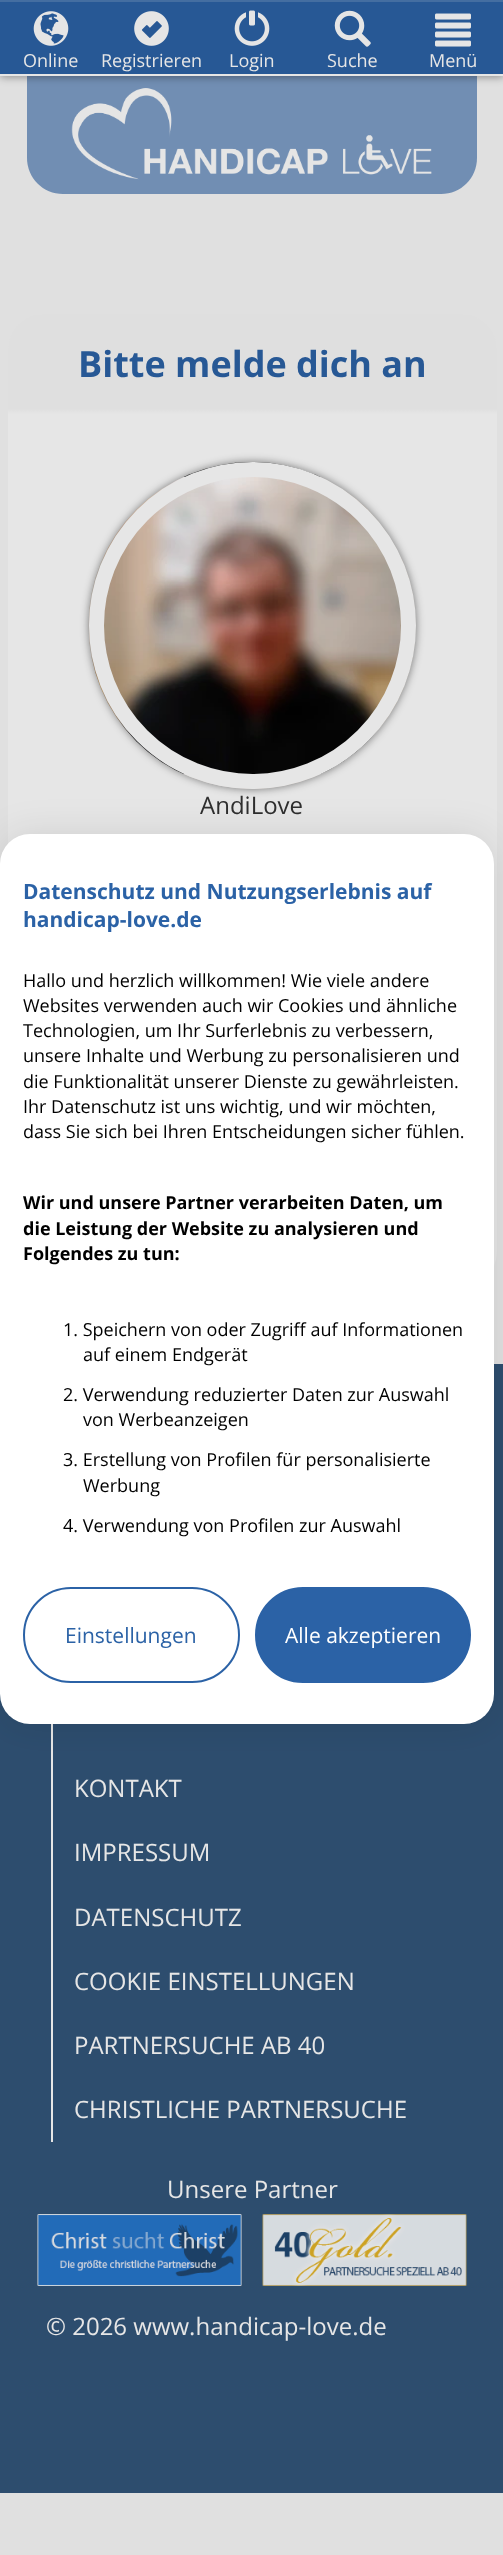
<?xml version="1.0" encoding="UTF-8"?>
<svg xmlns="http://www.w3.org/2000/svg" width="503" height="2555">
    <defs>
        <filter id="blur1" x="-50%" y="-200%" width="200%" height="500%"><feGaussianBlur stdDeviation="4"/></filter>
        <linearGradient id="g1" gradientUnits="userSpaceOnUse" x1="252" y1="313" x2="252" y2="414"><stop offset="0.95" stop-color="#DFDFDF"/><stop offset="1" stop-color="#DFDFDF" stop-opacity="0"/></linearGradient>
        <filter id="blur2" x="-50%" y="-200%" width="200%" height="500%"><feGaussianBlur stdDeviation="18"/></filter>
    </defs>
    <rect width="100%" height="100%" fill="#E0E0E0"/>
    <path d="M 27 75 H 477 V 158 C 477 178 461 194 441 194 H 63 C 43 194 27 178 27 158 Z" fill="#718EB3"/>
    <image x="71" y="88" width="361" height="92" href="img_06.png"/>
    <rect x="0" y="2" width="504" height="75" fill="#000000" fill-opacity="0.38" filter="url(#blur1)"/>
    <rect x="0" y="2" width="503" height="72" fill="#275895"/>
    <rect x="0" y="0" width="503" height="2" fill="#446EA1"/>
    <rect x="0" y="74" width="503" height="2" fill="#E6E6E6"/>
    <image x="33" y="11" width="36" height="35" href="img_01.png"/>
    <text x="23" y="67" font-family="Open Sans" font-size="18" fill="#E6E6E6">Online</text>
    <image x="134" y="11" width="35" height="35" href="img_02.png"/>
    <text x="101" y="67" font-family="Open Sans" font-size="18" fill="#E6E6E6">Registrieren</text>
    <image x="234" y="10" width="36" height="36" href="img_03.png"/>
    <text x="229" y="67" font-family="Open Sans" font-size="18" fill="#E6E6E6">Login</text>
    <image x="334" y="10" width="37" height="37" href="img_04.png"/>
    <text x="327" y="67" font-family="Open Sans" font-size="18" fill="#E6E6E6">Suche</text>
    <image x="435" y="13" width="36" height="34" href="img_05.png"/>
    <text x="429" y="67" font-family="Open Sans" font-size="18" fill="#E6E6E6">Menü</text>
    <rect x="8" y="314" width="489" height="975" rx="38" fill="#E6E6E6"/>
    <path d="M 44 314 H 461 C 481 314 497 330 497 350 V 414 H 8 V 350 C 8 330 24 314 44 314 Z" fill="url(#g1)"/>
    <text x="78" y="377" font-family="Open Sans" font-size="36" font-weight="700" fill="#275895">Bitte melde dich an</text>
    <rect x="89" y="462" width="327" height="327" rx="163.5" fill="#000000" fill-opacity="0.5" filter="url(#blur1)"/>
    <image x="88" y="462" width="328" height="327" href="img_07.png"/>
    <circle cx="252.5" cy="625.5" r="156" fill="none" stroke="#E6E6E6" stroke-width="15"/>
    <text x="200" y="814" font-family="Open Sans" font-size="24" fill="#2E2E2E">AndiLove</text>
    <rect x="0" y="1364" width="503" height="1129" fill="#2D4D6E"/>
    <rect x="51" y="1724" width="2" height="418" fill="#E6E6E6"/>
    <rect x="0" y="834" width="494" height="890" rx="30" fill="#000000" fill-opacity="0.1" filter="url(#blur2)"/>
    <rect x="0" y="834" width="494" height="890" rx="30" fill="#FFFFFF"/>
    <text font-family="Open Sans" font-size="21" font-weight="700" fill="#2B62A6">
        <tspan x="23" y="899">Datenschutz und Nutzungserlebnis auf</tspan>
        <tspan x="23" y="927">handicap-love.de</tspan>
    </text>
    <text font-family="Open Sans" font-size="18" fill="#000000">
        <tspan x="23" y="987">Hallo und herzlich willkommen! Wie viele andere</tspan>
        <tspan x="23" y="1012">Websites verwenden auch wir Cookies und ähnliche</tspan>
        <tspan x="23" y="1037">Technologien, um Ihr Surferlebnis zu verbessern,</tspan>
        <tspan x="23" y="1062">unsere Inhalte und Werbung zu personalisieren und</tspan>
        <tspan x="23" y="1088">die Funktionalität unserer Dienste zu gewährleisten.</tspan>
        <tspan x="23" y="1113">Ihr Datenschutz ist uns wichtig, und wir möchten,</tspan>
        <tspan x="23" y="1138">dass Sie sich bei Ihren Entscheidungen sicher fühlen.</tspan>
    </text>
    <text font-family="Open Sans" font-size="18" font-weight="700" fill="#000000">
        <tspan x="23" y="1209">Wir und unsere Partner verarbeiten Daten, um</tspan>
        <tspan x="23" y="1235">die Leistung der Website zu analysieren und</tspan>
        <tspan x="23" y="1260">Folgendes zu tun:</tspan>
    </text>
    <text x="63" y="1336" font-family="Open Sans" font-size="18" fill="#000000">1. Speichern von oder Zugriff auf Informationen</text>
    <text x="83" y="1361" font-family="Open Sans" font-size="18" fill="#000000">auf einem Endgerät</text>
    <text x="63" y="1401" font-family="Open Sans" font-size="18" fill="#000000">2. Verwendung reduzierter Daten zur Auswahl</text>
    <text x="83" y="1426" font-family="Open Sans" font-size="18" fill="#000000">von Werbeanzeigen</text>
    <text x="63" y="1466" font-family="Open Sans" font-size="18" fill="#000000">3. Erstellung von Profilen für personalisierte</text>
    <text x="83" y="1492" font-family="Open Sans" font-size="18" fill="#000000">Werbung</text>
    <text x="63" y="1532" font-family="Open Sans" font-size="18" fill="#000000">4. Verwendung von Profilen zur Auswahl</text>
    <rect x="24" y="1588" width="215" height="94" rx="47" fill="none" stroke="#2B62A6" stroke-width="2"/>
    <text x="65" y="1643" font-family="Open Sans" font-size="21" fill="#2B62A6">Einstellungen</text>
    <rect x="256" y="1588" width="214" height="94" rx="47" fill="#2B62A6" stroke="#2B62A6" stroke-width="2"/>
    <text x="285" y="1643" font-family="Open Sans" font-size="21" fill="#FFFFFF">Alle akzeptieren</text>
    <text x="74" y="1797" font-family="Open Sans" font-size="24" fill="#E6E6E6">KONTAKT</text>
    <text x="74" y="1861" font-family="Open Sans" font-size="24" fill="#E6E6E6">IMPRESSUM</text>
    <text x="74" y="1926" font-family="Open Sans" font-size="24" fill="#E6E6E6">DATENSCHUTZ</text>
    <text x="74" y="1990" font-family="Open Sans" font-size="24" fill="#E6E6E6">COOKIE EINSTELLUNGEN</text>
    <text x="74" y="2054" font-family="Open Sans" font-size="24" fill="#E6E6E6">PARTNERSUCHE AB 40</text>
    <text x="74" y="2118" font-family="Open Sans" font-size="24" fill="#E6E6E6">CHRISTLICHE PARTNERSUCHE</text>
    <text x="167" y="2198" font-family="Open Sans" font-size="24" fill="#E6E6E6">Unsere Partner</text>
    <image x="37" y="2214" width="205" height="72" href="img_08.png"/>
    <image x="262" y="2214" width="205" height="72" href="img_09.png"/>
    <text x="46" y="2335" font-family="Open Sans" font-size="24" fill="#E6E6E6">© 2026 www.handicap-love.de</text>
</svg>
